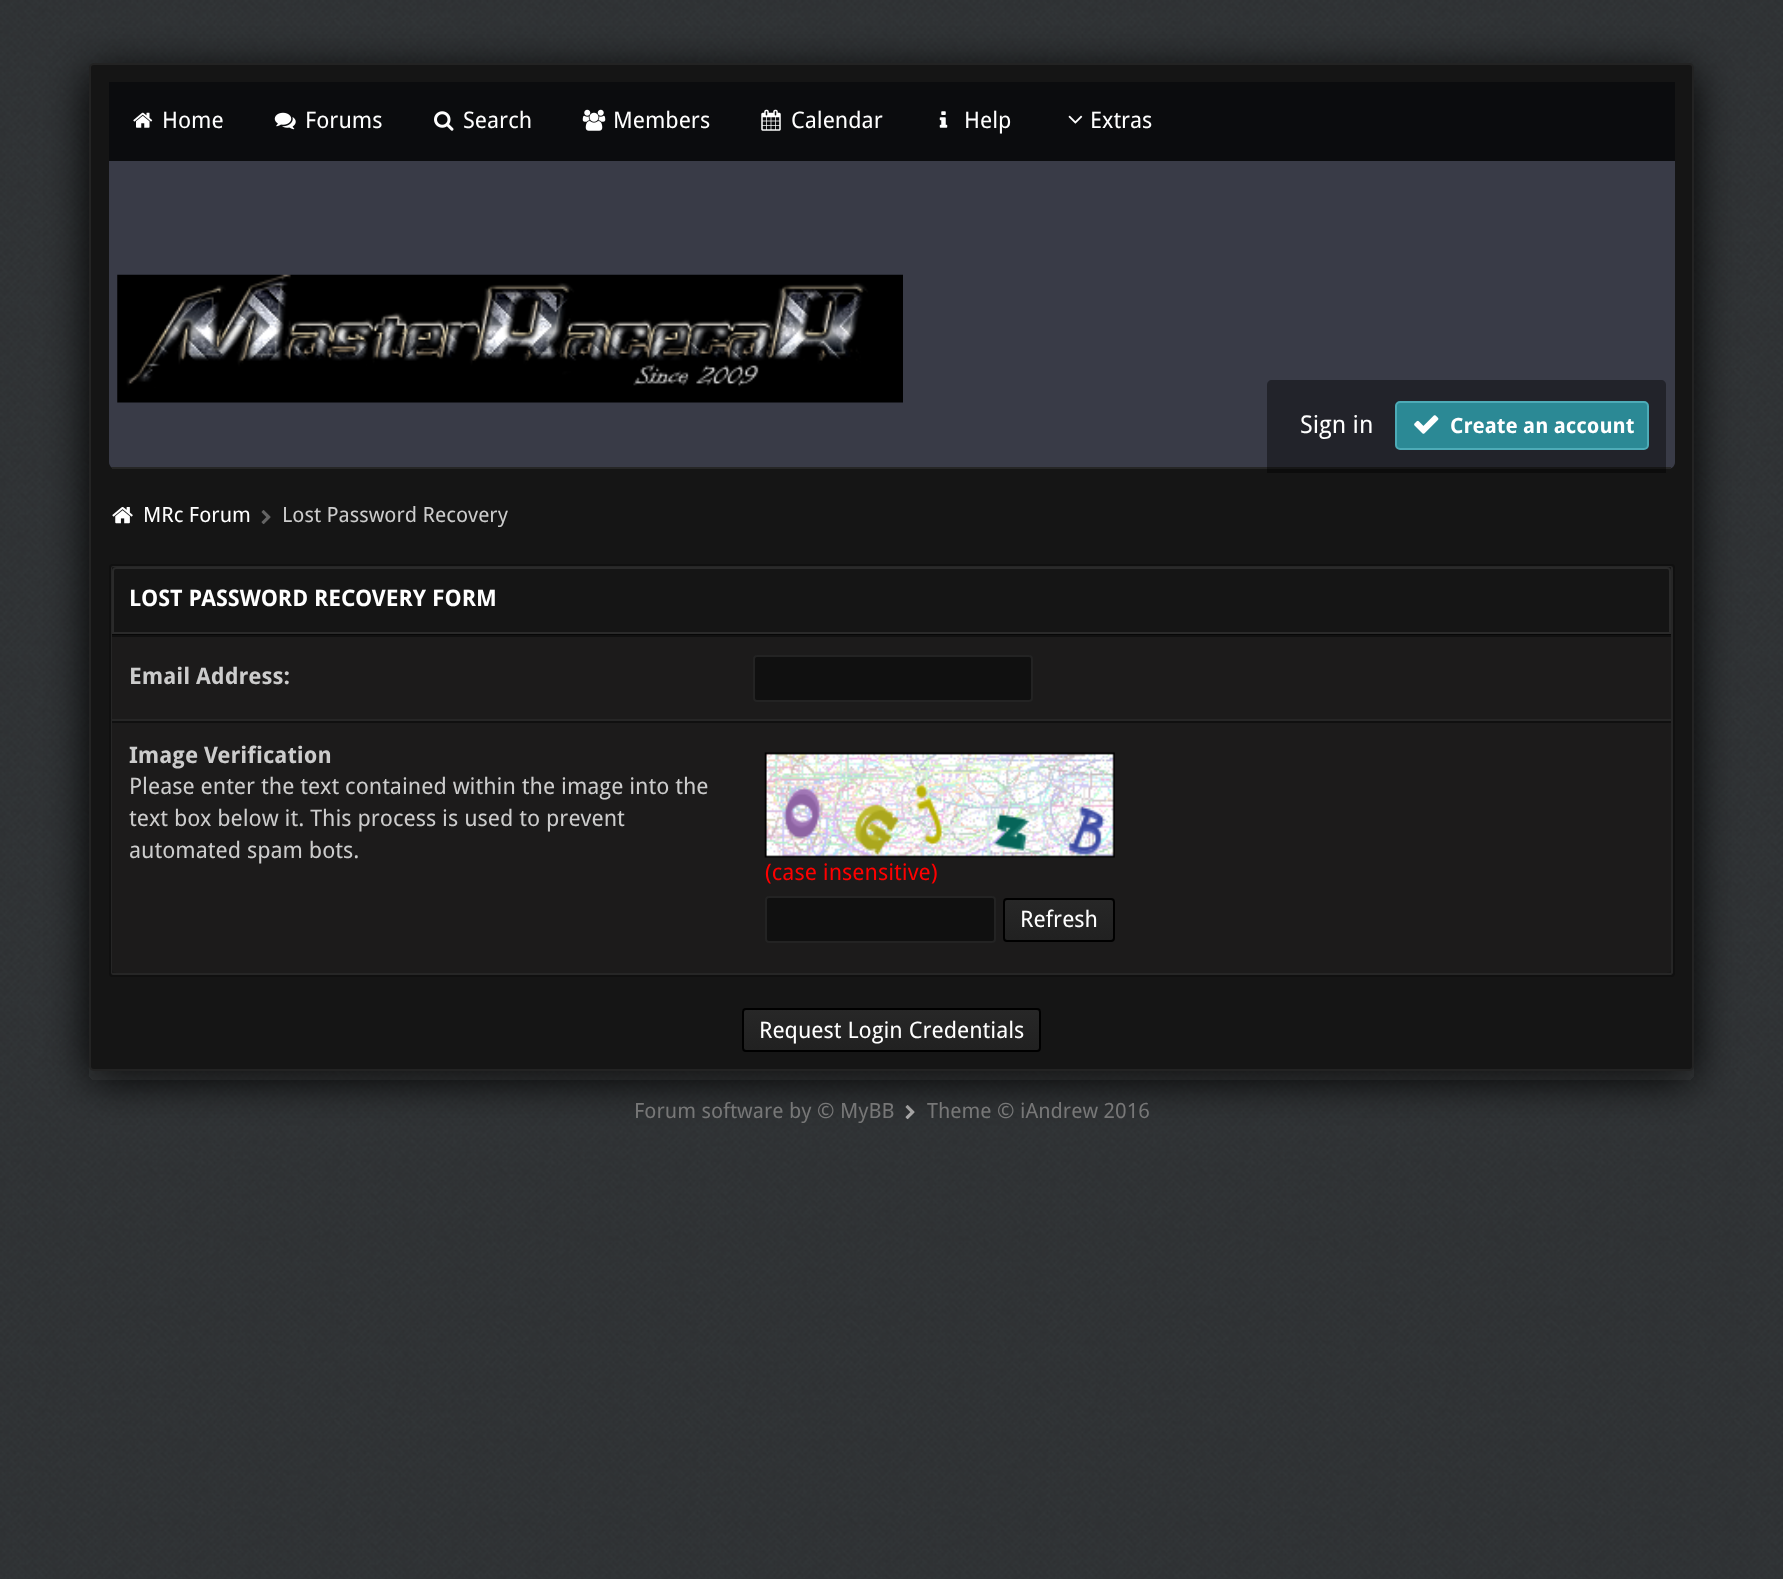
<?xml version="1.0" encoding="UTF-8"?>
<svg xmlns="http://www.w3.org/2000/svg" width="1783" height="1579">
    <defs>
        <filter id="blur1" x="-50%" y="-200%" width="200%" height="500%"><feGaussianBlur stdDeviation="22"/></filter>
        <clipPath id="clip1"><rect x="1003" y="898" width="112" height="44" rx="4"/></clipPath>
        <linearGradient id="g1" gradientUnits="userSpaceOnUse" x1="1059" y1="900" x2="1059" y2="940"><stop offset="0" stop-color="#272727"/><stop offset="1" stop-color="#212121"/></linearGradient>
        <clipPath id="clip2"><rect x="742" y="1008" width="299" height="44" rx="4"/></clipPath>
        <linearGradient id="g2" gradientUnits="userSpaceOnUse" x1="892" y1="1010" x2="892" y2="1050"><stop offset="0" stop-color="#272727"/><stop offset="1" stop-color="#212121"/></linearGradient>
    </defs>
    <rect width="100%" height="100%" fill="#FFFFFF"/>
    <image x="0" y="0" width="1783" height="1579" href="img_01.png"/>
    <image x="905" y="1105" width="10" height="15" href="img_14.png"/>
    <rect x="89" y="72" width="1605" height="1008" rx="5" fill="#0D0D0D" filter="url(#blur1)"/>
    <rect x="90" y="64" width="1603" height="1006" rx="4" fill="#151515" stroke="#232323" stroke-width="2"/>
    <path d="M 109 82 H 1675 V 462 C 1675 466 1672 469 1668 469 H 116 C 112 469 109 466 109 462 Z" fill="#393B47"/>
    <rect x="109" y="82" width="1566" height="79" fill="#0B0C0E"/>
    <image x="133" y="112" width="20" height="16" href="img_02.png"/>
    <text x="162" y="128" font-family="Droid Sans" font-size="22.75" fill="#FFFFFF">Home</text>
    <image x="274" y="112" width="22" height="18" href="img_03.png"/>
    <text x="305" y="128" font-family="Droid Sans" font-size="22.75" fill="#FFFFFF">Forums</text>
    <image x="434" y="111" width="20" height="20" href="img_04.png"/>
    <text x="463" y="128" font-family="Droid Sans" font-size="22.75" fill="#FFFFFF">Search</text>
    <image x="582" y="109" width="24" height="22" href="img_05.png"/>
    <text x="613" y="128" font-family="Droid Sans" font-size="22.75" fill="#FFFFFF">Members</text>
    <image x="761" y="109" width="20" height="22" href="img_06.png"/>
    <text x="791" y="128" font-family="Droid Sans" font-size="22.75" fill="#FFFFFF">Calendar</text>
    <image x="939" y="111" width="9" height="17" href="img_07.png"/>
    <text x="964" y="128" font-family="Droid Sans" font-size="22.75" fill="#FFFFFF">Help</text>
    <image x="1068" y="115" width="15" height="9" href="img_08.png"/>
    <text x="1090" y="128" font-family="Droid Sans" font-size="22.75" fill="#FFFFFF">Extras</text>
    <rect x="112" y="467" width="1559" height="2" fill="#262626"/>
    <image x="117" y="274" width="786" height="129" href="img_09.png"/>
    <path d="M 1272 380 H 1661 C 1664 380 1666 382 1666 385 V 473 H 1267 V 385 C 1267 382 1269 380 1272 380 Z" fill="#000000" fill-opacity="0.4"/>
    <text x="1300" y="433" font-family="Droid Sans" font-size="24.5" fill="#FFFFFF">Sign in</text>
    <rect x="1396" y="402" width="252" height="47" rx="4" fill="#2B8995" stroke="#4DABB7" stroke-width="2"/>
    <image x="1414" y="415" width="25" height="19" href="img_10.png"/>
    <text x="1450" y="433" font-family="Droid Sans" font-size="21" font-weight="700" fill="#FFFFFF">Create an account</text>
    <image x="112" y="507" width="21" height="17" href="img_11.png"/>
    <text x="143" y="522" font-family="Droid Sans" font-size="21" fill="#FFFFFF">MRc Forum</text>
    <image x="261" y="510" width="10" height="15" href="img_12.png"/>
    <text x="282" y="522" font-family="Droid Sans" font-size="21" fill="#CCCCCC">Lost Password Recovery</text>
    <rect x="111" y="566" width="1561" height="408" rx="1" fill="#181818" stroke="#262626" stroke-width="2"/>
    <rect x="110" y="565" width="1564" height="411" rx="3" fill="none" stroke="#101010" stroke-width="2"/>
    <path d="M 116 568 H 1667 C 1668.5 568 1670 569.5 1670 571 V 633 H 113 V 571 C 113 569.5 114.5 568 116 568 Z" fill="#151515" stroke="#2A2A2A" stroke-width="2"/>
    <rect x="112" y="634" width="1559" height="1" fill="#070707"/>
    <text x="129" y="606" font-family="Droid Sans" font-size="22.75" font-weight="700" fill="#FFFFFF">LOST PASSWORD RECOVERY FORM</text>
    <rect x="112" y="637" width="1559" height="82" fill="#1C1B1B"/>
    <rect x="112" y="635" width="1559" height="2" fill="#101010"/>
    <rect x="112" y="719" width="1559" height="2" fill="#262626"/>
    <text x="129" y="684" font-family="Droid Sans" font-size="22.75" font-weight="700" fill="#CCCCCC">Email Address:</text>
    <rect x="754" y="656" width="278" height="45" rx="3" fill="#101010" stroke="#232323" stroke-width="2"/>
    <path d="M 112 721 H 735 V 973 H 116 C 114 973 112 971 112 969 Z" fill="#1C1B1B"/>
    <rect x="112" y="721" width="623" height="2" fill="#101010"/>
    <text x="129" y="763" font-family="Droid Sans" font-size="22.75" font-weight="700" fill="#CCCCCC">Image Verification</text>
    <text font-family="Droid Sans" font-size="22.75" fill="#CCCCCC">
        <tspan x="129" y="794">Please enter the text contained within the image into the</tspan>
        <tspan x="129" y="826">text box below it. This process is used to prevent</tspan>
        <tspan x="129" y="858">automated spam bots.</tspan>
    </text>
    <path d="M 735 721 H 1671 V 969 C 1671 971 1669 973 1667 973 H 735 Z" fill="#1C1B1B"/>
    <rect x="735" y="721" width="936" height="2" fill="#101010"/>
    <image x="764" y="752" width="351" height="106" href="img_13.png"/>
    <text x="765" y="880" font-family="Droid Sans" font-size="22.75" fill="#FF0000">(case insensitive)</text>
    <rect x="766" y="897" width="229" height="45" rx="3" fill="#101010" stroke="#232323" stroke-width="2"/>
    <g clip-path="url(#clip1)">
        <rect x="1003" y="900" width="112" height="40" fill="url(#g1)"/>
    </g>
    <rect x="1004" y="899" width="110" height="42" rx="3" fill="none" stroke="#000000" stroke-width="2"/>
    <text x="1020" y="927" font-family="Droid Sans" font-size="22.75" fill="#FFFFFF">Refresh</text>
    <g clip-path="url(#clip2)">
        <rect x="742" y="1010" width="299" height="40" fill="url(#g2)"/>
    </g>
    <rect x="743" y="1009" width="297" height="42" rx="3" fill="none" stroke="#000000" stroke-width="2"/>
    <text x="759" y="1038" font-family="Droid Sans" font-size="22.75" fill="#FFFFFF">Request Login Credentials</text>
    <text x="634" y="1118" font-family="Droid Sans" font-size="21" fill="#777777">Forum software by © MyBB</text>
    <text x="927" y="1118" font-family="Droid Sans" font-size="21" fill="#777777">Theme © iAndrew 2016</text>
</svg>
